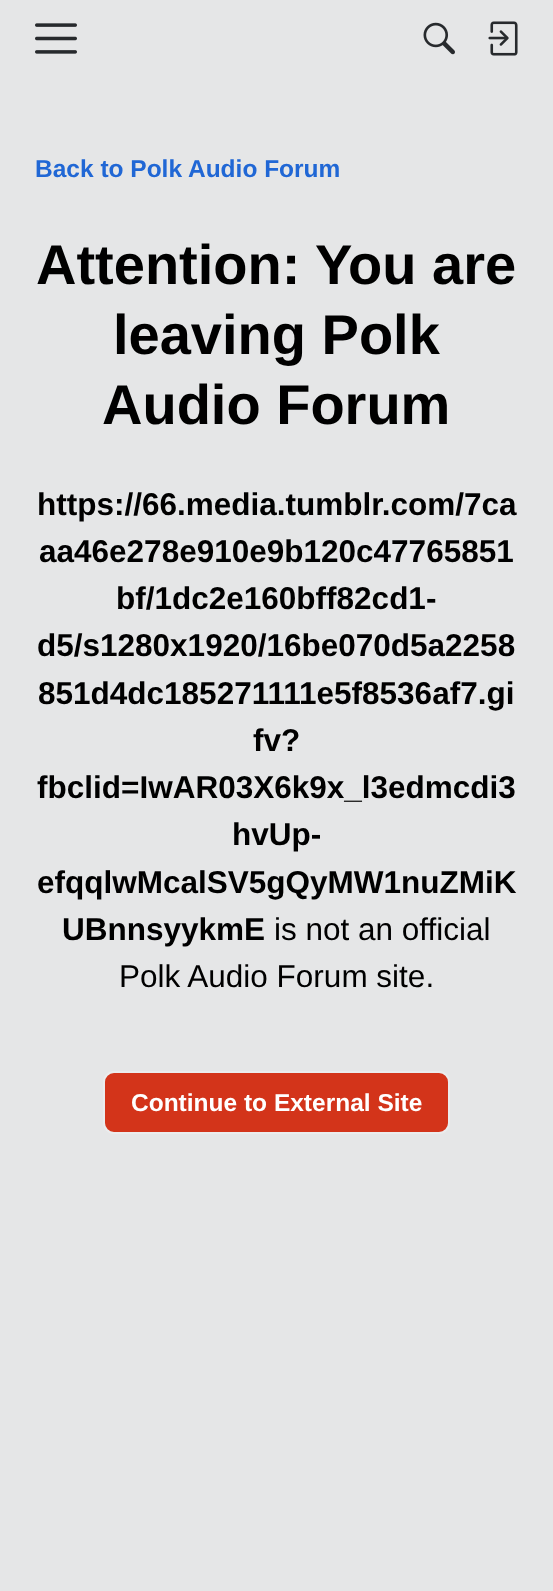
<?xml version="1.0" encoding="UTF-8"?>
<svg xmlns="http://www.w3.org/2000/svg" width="553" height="1591">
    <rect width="100%" height="100%" fill="#E5E6E7"/>
    <image x="35" y="23" width="42" height="31" href="img_01.png"/>
    <image x="423" y="22" width="32" height="33" href="img_02.png"/>
    <image x="488" y="21" width="30" height="35" href="img_03.png"/>
    <text x="35" y="177" font-family="Liberation Sans" font-size="24.5" font-weight="700" fill="#2067D5">Back to Polk Audio Forum</text>
    <text x="36" y="284" font-family="Liberation Sans" font-size="56" font-weight="700" fill="#000000">Attention: You are</text>
    <text x="113" y="354" font-family="Liberation Sans" font-size="56" font-weight="700" fill="#000000">leaving Polk</text>
    <text x="102" y="424" font-family="Liberation Sans" font-size="56" font-weight="700" fill="#000000">Audio Forum</text>
    <text x="37" y="515" font-family="Liberation Sans" font-size="31.5" font-weight="700" fill="#000000">https://66.media.tumblr.com/7ca</text>
    <text x="39" y="562" font-family="Liberation Sans" font-size="31.5" font-weight="700" fill="#000000">aa46e278e910e9b120c47765851</text>
    <text x="116" y="609" font-family="Liberation Sans" font-size="31.5" font-weight="700" fill="#000000">bf/1dc2e160bff82cd1-</text>
    <text x="37" y="656" font-family="Liberation Sans" font-size="31.5" font-weight="700" fill="#000000">d5/s1280x1920/16be070d5a2258</text>
    <text x="38" y="704" font-family="Liberation Sans" font-size="31.5" font-weight="700" fill="#000000">851d4dc185271111e5f8536af7.gi</text>
    <text x="253" y="751" font-family="Liberation Sans" font-size="31.5" font-weight="700" fill="#000000">fv?</text>
    <text x="37" y="798" font-family="Liberation Sans" font-size="31.5" font-weight="700" fill="#000000">fbclid=IwAR03X6k9x_l3edmcdi3</text>
    <text x="232" y="845" font-family="Liberation Sans" font-size="31.5" font-weight="700" fill="#000000">hvUp-</text>
    <text x="37" y="893" font-family="Liberation Sans" font-size="31.5" font-weight="700" fill="#000000">efqqlwMcalSV5gQyMW1nuZMiK</text>
    <text x="62" y="940" font-family="Liberation Sans" font-size="31.5" font-weight="700" fill="#000000">UBnnsyykmE</text>
    <text x="274" y="940" font-family="Liberation Sans" font-size="31.5" fill="#000000">is not an official</text>
    <text x="119" y="987" font-family="Liberation Sans" font-size="31.5" fill="#000000">Polk Audio Forum site.</text>
    <rect x="104" y="1072" width="345" height="61" rx="10" fill="#D3341A" stroke="#EBECED" stroke-width="2"/>
    <text x="131" y="1111" font-family="Liberation Sans" font-size="24.5" font-weight="700" fill="#FFFFFF">Continue to External Site</text>
</svg>
